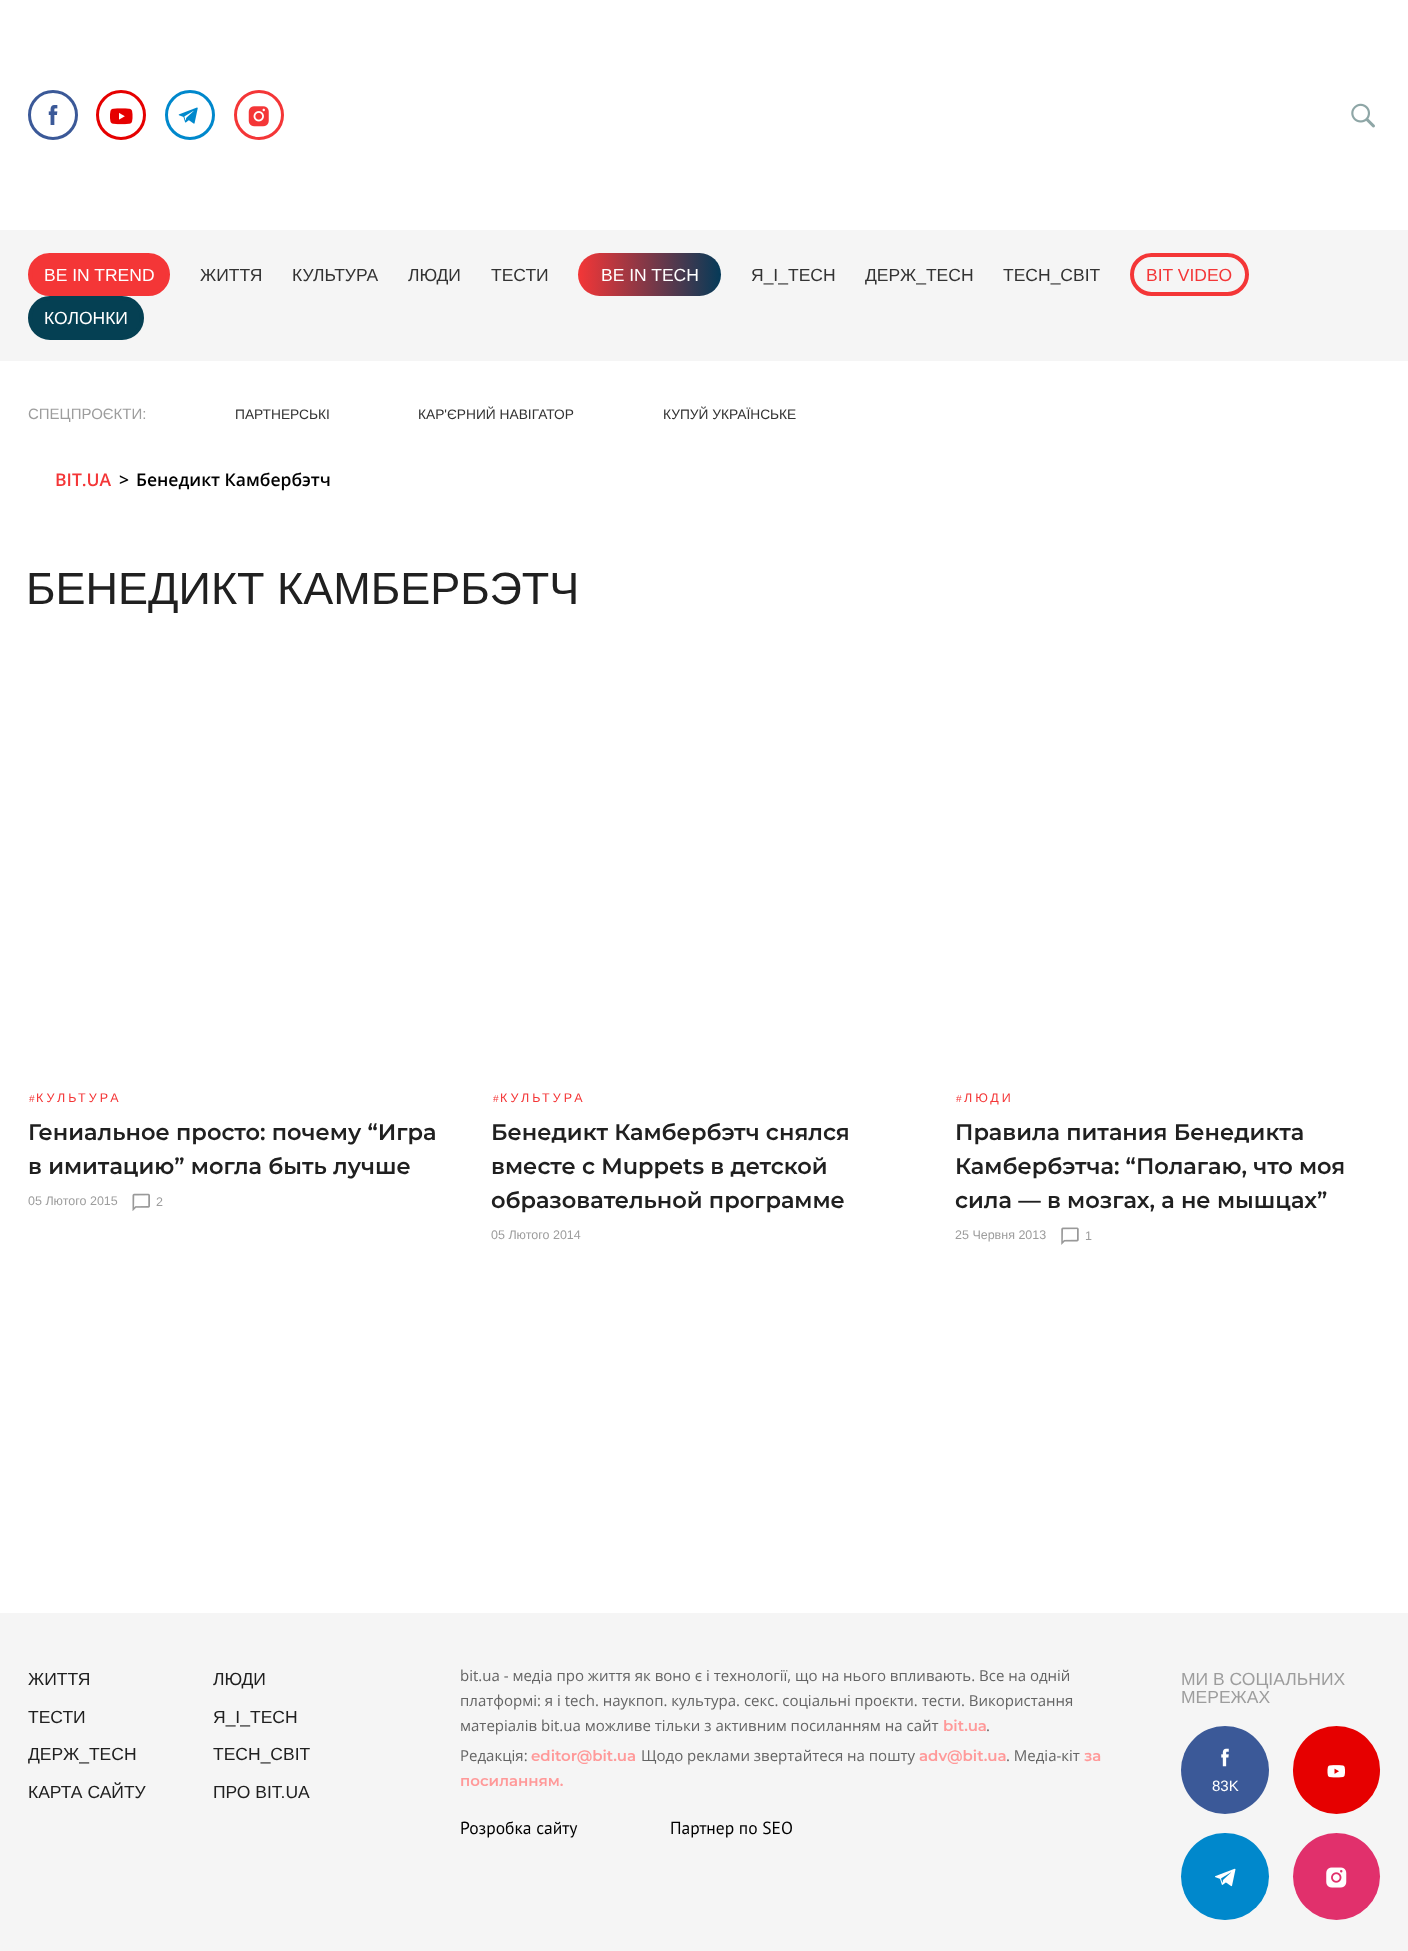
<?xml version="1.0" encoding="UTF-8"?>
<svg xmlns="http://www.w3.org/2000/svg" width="1408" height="1951">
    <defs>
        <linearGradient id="g1" gradientUnits="userSpaceOnUse" x1="578" y1="274" x2="721" y2="274"><stop offset="0" stop-color="#F43637"/><stop offset="1" stop-color="#053A58"/></linearGradient>
    </defs>
    <rect width="100%" height="100%" fill="#FFFFFF"/>
    <circle cx="53" cy="115" r="23.5" fill="none" stroke="#3B5998" stroke-width="3"/>
    <image x="48" y="105" width="10" height="20" href="img_01.png"/>
    <circle cx="121" cy="115" r="23.5" fill="none" stroke="#E60000" stroke-width="3"/>
    <image x="110" y="108" width="23" height="17" href="img_02.png"/>
    <circle cx="190" cy="115" r="23.5" fill="none" stroke="#0088CC" stroke-width="3"/>
    <image x="178" y="107" width="20" height="17" href="img_03.png"/>
    <circle cx="259" cy="115" r="23.5" fill="none" stroke="#F43637" stroke-width="3"/>
    <image x="248" y="106" width="21" height="21" href="img_04.png"/>
    <image x="1351" y="103" width="24" height="25" href="img_05.png"/>
    <rect x="0" y="230" width="1408" height="131" fill="#F5F5F5"/>
    <rect x="30" y="255" width="138" height="39" rx="19.5" fill="#F43637" stroke="#F43637" stroke-width="4"/>
    <text x="44" y="281" font-family="Liberation Sans" font-size="17.5" fill="#FFFFFF">BE IN TREND</text>
    <text x="200" y="281" font-family="Liberation Sans" font-size="17.5" fill="#333333">ЖИТТЯ</text>
    <text x="292" y="281" font-family="Liberation Sans" font-size="17.5" fill="#333333">КУЛЬТУРА</text>
    <text x="408" y="281" font-family="Liberation Sans" font-size="17.5" fill="#333333">ЛЮДИ</text>
    <text x="491" y="281" font-family="Liberation Sans" font-size="17.5" fill="#333333">ТЕСТИ</text>
    <rect x="578" y="253" width="143" height="43" rx="21.5" fill="url(#g1)"/>
    <text x="601" y="281" font-family="Liberation Sans" font-size="17.5" fill="#FFFFFF">BE IN TECH</text>
    <text x="751" y="281" font-family="Liberation Sans" font-size="17.5" fill="#333333">Я_І_TECH</text>
    <text x="865" y="281" font-family="Liberation Sans" font-size="17.5" fill="#333333">ДЕРЖ_TECH</text>
    <text x="1003" y="281" font-family="Liberation Sans" font-size="17.5" fill="#333333">TECH_СВІТ</text>
    <rect x="1132" y="255" width="115" height="39" rx="19.5" fill="none" stroke="#F43637" stroke-width="4"/>
    <text x="1146" y="281" font-family="Liberation Sans" font-size="17.5" fill="#F43637">BIT VIDEO</text>
    <rect x="30" y="298" width="112" height="40" rx="20" fill="#054053" stroke="#054053" stroke-width="4"/>
    <text x="44" y="324" font-family="Liberation Sans" font-size="17.5" fill="#FFFFFF">КОЛОНКИ</text>
    <text x="28" y="419" font-family="Liberation Sans" font-size="15" fill="#9D9D9D">СПЕЦПРОЄКТИ:</text>
    <text x="235" y="419" font-family="Liberation Sans" font-size="13.75" fill="#333333">ПАРТНЕРСЬКІ</text>
    <text x="418" y="419" font-family="Liberation Sans" font-size="13.75" fill="#333333">КАР'ЄРНИЙ НАВІГАТОР</text>
    <text x="663" y="419" font-family="Liberation Sans" font-size="13.75" fill="#333333">КУПУЙ УКРАЇНСЬКЕ</text>
    <text x="55" y="486" font-family="Open Sans" font-size="17.5" font-weight="600" fill="#F43637">BIT.UA</text>
    <text x="119" y="486" font-family="Open Sans" font-size="17.5" font-weight="600" fill="#000000">&gt;</text>
    <text x="136" y="486" font-family="Open Sans" font-size="17.5" font-weight="600" fill="#000000">Бенедикт Камбербэтч</text>
    <text x="26" y="604" font-family="Liberation Sans" font-size="45" fill="#202020">БЕНЕДИКТ КАМБЕРБЭТЧ</text>
    <text x="29" y="1102" font-family="Liberation Sans" font-size="10" letter-spacing="3" fill="#F43637">#</text>
    <text x="36" y="1102" font-family="Liberation Sans" font-size="12.5" letter-spacing="3" fill="#F43637">КУЛЬТУРА</text>
    <text font-family="Montserrat" font-size="22.5" font-weight="600" fill="#202020">
        <tspan x="28" y="1140">Гениальное просто: почему “Игра</tspan>
        <tspan x="28" y="1174">в имитацию” могла быть лучше</tspan>
    </text>
    <text x="28" y="1205" font-family="Liberation Sans" font-size="12.5" fill="#9D9D9D">05 Лютого 2015</text>
    <image x="132" y="1193" width="18" height="18" href="img_06.png"/>
    <text x="156" y="1206" font-family="Liberation Sans" font-size="12.5" fill="#9D9D9D">2</text>
    <text x="493" y="1102" font-family="Liberation Sans" font-size="10" letter-spacing="3" fill="#F43637">#</text>
    <text x="500" y="1102" font-family="Liberation Sans" font-size="12.5" letter-spacing="3" fill="#F43637">КУЛЬТУРА</text>
    <text font-family="Montserrat" font-size="22.5" font-weight="600" fill="#202020">
        <tspan x="491" y="1140">Бенедикт Камбербэтч снялся</tspan>
        <tspan x="491" y="1174">вместе с Muppets в детской</tspan>
        <tspan x="491" y="1208">образовательной программе</tspan>
    </text>
    <text x="491" y="1239" font-family="Liberation Sans" font-size="12.5" fill="#9D9D9D">05 Лютого 2014</text>
    <text x="956" y="1102" font-family="Liberation Sans" font-size="10" letter-spacing="3" fill="#F43637">#</text>
    <text x="964" y="1102" font-family="Liberation Sans" font-size="12.5" letter-spacing="3" fill="#F43637">ЛЮДИ</text>
    <text font-family="Montserrat" font-size="22.5" font-weight="600" fill="#202020">
        <tspan x="955" y="1140">Правила питания Бенедикта</tspan>
        <tspan x="955" y="1174">Камбербэтча: “Полагаю, что моя</tspan>
        <tspan x="955" y="1208">сила — в мозгах, а не мышцах”</tspan>
    </text>
    <text x="955" y="1239" font-family="Liberation Sans" font-size="12.5" fill="#9D9D9D">25 Червня 2013</text>
    <image x="1061" y="1227" width="18" height="18" href="img_07.png"/>
    <text x="1085" y="1240" font-family="Liberation Sans" font-size="12.5" fill="#9D9D9D">1</text>
    <rect x="0" y="1613" width="1408" height="338" fill="#F5F5F5"/>
    <text x="28" y="1685" font-family="Liberation Sans" font-size="17.5" fill="#202020">ЖИТТЯ</text>
    <text x="213" y="1685" font-family="Liberation Sans" font-size="17.5" fill="#202020">ЛЮДИ</text>
    <text x="28" y="1723" font-family="Liberation Sans" font-size="17.5" fill="#202020">ТЕСТИ</text>
    <text x="213" y="1723" font-family="Liberation Sans" font-size="17.5" fill="#202020">Я_І_TECH</text>
    <text x="28" y="1760" font-family="Liberation Sans" font-size="17.5" fill="#202020">ДЕРЖ_TECH</text>
    <text x="213" y="1760" font-family="Liberation Sans" font-size="17.5" fill="#202020">TECH_СВІТ</text>
    <text x="28" y="1798" font-family="Liberation Sans" font-size="17.5" fill="#202020">КАРТА САЙТУ</text>
    <text x="213" y="1798" font-family="Liberation Sans" font-size="17.5" fill="#202020">ПРО BIT.UA</text>
    <text font-family="Open Sans" font-size="15" fill="#646464">
        <tspan x="460" y="1681">bit.ua - медіа про життя як воно є і технології, що на нього впливають. Все на одній</tspan>
        <tspan x="460" y="1706">платформі: я і tech. наукпоп. культура. секс. соціальні проєкти. тести. Використання</tspan>
        <tspan x="460" y="1731">матеріалів bit.ua можливе тільки з активним посиланням на сайт</tspan>
    </text>
    <text x="943" y="1731" font-family="Montserrat" font-size="15" font-weight="600" fill="#FF9999">bit.ua</text>
    <text x="986" y="1731" font-family="Open Sans" font-size="15" fill="#646464">.</text>
    <text x="460" y="1761" font-family="Open Sans" font-size="15" fill="#646464">Редакція:</text>
    <text x="531" y="1761" font-family="Montserrat" font-size="15" font-weight="600" fill="#FF9999">editor@bit.ua</text>
    <text x="641" y="1761" font-family="Open Sans" font-size="15" fill="#646464">Щодо реклами звертайтеся на пошту</text>
    <text x="919" y="1761" font-family="Montserrat" font-size="15" font-weight="600" fill="#FF9999">adv@bit.ua</text>
    <text x="1006" y="1761" font-family="Open Sans" font-size="15" fill="#646464">. Медіа-кіт</text>
    <text x="1084" y="1761" font-family="Montserrat" font-size="15" font-weight="600" fill="#FF9999">за</text>
    <text x="460" y="1786" font-family="Montserrat" font-size="15" font-weight="600" fill="#FF9999">посиланням.</text>
    <text x="460" y="1834" font-family="PT Sans" font-size="17.5" fill="#000000">Розробка сайту</text>
    <text x="670" y="1834" font-family="PT Sans" font-size="17.5" fill="#000000">Партнер по SEO</text>
    <text font-family="Liberation Sans" font-size="17.5" fill="#9D9D9D">
        <tspan x="1181" y="1685">МИ В СОЦІАЛЬНИХ</tspan>
        <tspan x="1181" y="1703">МЕРЕЖАХ</tspan>
    </text>
    <circle cx="1225" cy="1770" r="44" fill="#3B5998"/>
    <image x="1221" y="1748" width="8" height="19" href="img_08.png"/>
    <text x="1212" y="1791" font-family="Liberation Sans" font-size="15" fill="#FFFFFF">83K</text>
    <rect x="1293" y="1726" width="87" height="88" rx="43.5" fill="#E60000"/>
    <image x="1327" y="1765" width="18" height="13" href="img_09.png"/>
    <rect x="1181" y="1833" width="88" height="87" rx="43.5" fill="#0088CC"/>
    <image x="1215" y="1868" width="21" height="19" href="img_10.png"/>
    <circle cx="1336.5" cy="1876.5" r="43.5" fill="#E1306C"/>
    <image x="1326" y="1867" width="21" height="21" href="img_11.png"/>
</svg>
